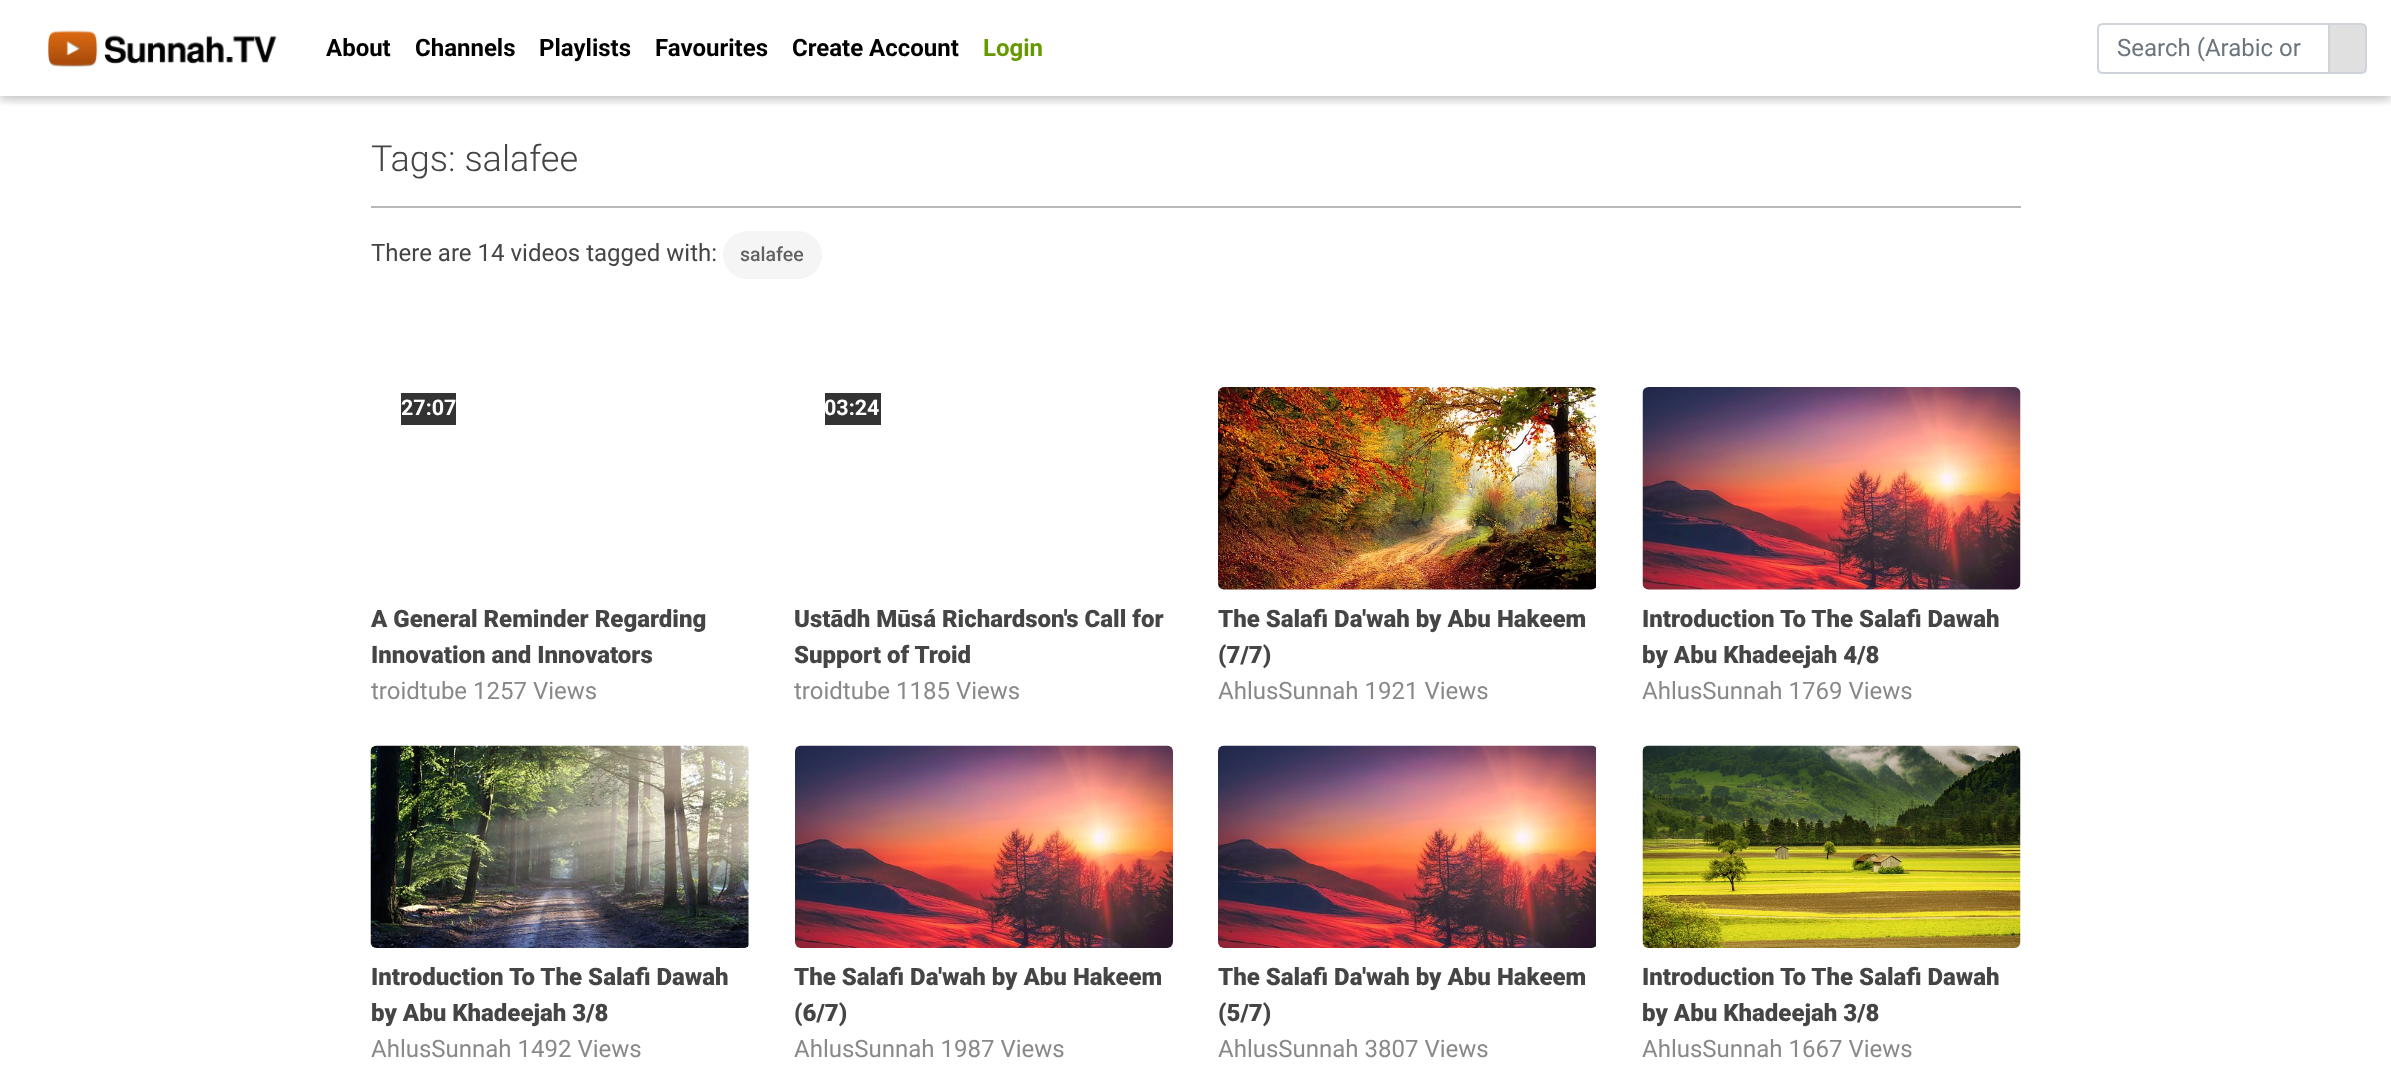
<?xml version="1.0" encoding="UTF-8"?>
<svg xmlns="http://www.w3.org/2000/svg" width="2391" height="1075">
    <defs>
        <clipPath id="clip1"><rect x="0" y="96" width="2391" height="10"/></clipPath>
        <filter id="blur1" x="-50%" y="-200%" width="200%" height="500%"><feGaussianBlur stdDeviation="7.5"/></filter>
        <clipPath id="clip2"><rect x="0" y="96" width="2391" height="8"/></clipPath>
        <filter id="blur2" x="-50%" y="-200%" width="200%" height="500%"><feGaussianBlur stdDeviation="4"/></filter>
    </defs>
    <rect width="100%" height="100%" fill="#FFFFFF"/>
    <g clip-path="url(#clip1)">
        <rect x="0" y="3" width="2391" height="96" fill="#000000" fill-opacity="0.12" filter="url(#blur1)"/>
    </g>
    <g clip-path="url(#clip2)">
        <rect x="0" y="3" width="2391" height="96" fill="#000000" fill-opacity="0.16" filter="url(#blur2)"/>
    </g>
    <image x="48" y="30" width="229" height="37" href="img_01.png"/>
    <text x="326" y="56" font-family="Roboto" font-size="24" font-weight="700" fill="#000000">About</text>
    <text x="415" y="56" font-family="Roboto" font-size="24" font-weight="700" fill="#000000">Channels</text>
    <text x="539" y="56" font-family="Roboto" font-size="24" font-weight="700" fill="#000000">Playlists</text>
    <text x="655" y="56" font-family="Roboto" font-size="24" font-weight="700" fill="#000000">Favourites</text>
    <text x="792" y="56" font-family="Roboto" font-size="24" font-weight="700" fill="#000000">Create Account</text>
    <text x="983" y="56" font-family="Roboto" font-size="24" font-weight="700" fill="#669900">Login</text>
    <path d="M 2329 24 H 2361 C 2364 24 2366 26 2366 29 V 68 C 2366 71 2364 73 2361 73 H 2329 Z" fill="#E0E0E0" stroke="#CED4DA" stroke-width="2"/>
    <path d="M 2103 24 H 2329 V 73 H 2103 C 2100 73 2098 71 2098 68 V 29 C 2098 26 2100 24 2103 24 Z" fill="none" stroke="#CED4DA" stroke-width="2"/>
    <text x="2117" y="56" font-family="Roboto" font-size="24" fill="#6C757D">Search (Arabic or</text>
    <text x="371" y="171" font-family="Roboto" font-size="36" font-weight="300" fill="#454545">Tags: salafee</text>
    <rect x="371" y="206" width="1650" height="2" fill="#B9B9B9"/>
    <text x="371" y="261" font-family="Roboto" font-size="24" fill="#454545">There are 14 videos tagged with:</text>
    <rect x="723" y="231" width="99" height="48" rx="24" fill="#F5F5F5"/>
    <text x="740" y="261" font-family="Roboto" font-size="19.5" font-weight="500" fill="#626262">salafee</text>
    <rect x="401" y="393" width="55" height="32" fill="#333333"/>
    <text x="401" y="415" font-family="Roboto" font-size="21.5" font-weight="700" fill="#FFFFFF">27:07</text>
    <text font-family="Roboto" font-size="24" font-weight="900" fill="#454545">
        <tspan x="371" y="627">A General Reminder Regarding</tspan>
        <tspan x="371" y="663">Innovation and Innovators</tspan>
    </text>
    <text x="371" y="699" font-family="Roboto" font-size="24" fill="#898989">troidtube 1257 Views</text>
    <rect x="825" y="393" width="56" height="32" fill="#333333"/>
    <text x="824" y="415" font-family="Roboto" font-size="21.5" font-weight="700" fill="#FFFFFF">03:24</text>
    <text font-family="Roboto" font-size="24" font-weight="900" fill="#454545">
        <tspan x="794" y="627">Ustādh Mūsá Richardson's Call for</tspan>
        <tspan x="794" y="663">Support of Troid</tspan>
    </text>
    <text x="794" y="699" font-family="Roboto" font-size="24" fill="#898989">troidtube 1185 Views</text>
    <image x="1218" y="387" width="378" height="203" href="img_02.png"/>
    <text font-family="Roboto" font-size="24" font-weight="900" fill="#454545">
        <tspan x="1218" y="627">The Salafi Da'wah by Abu Hakeem</tspan>
        <tspan x="1218" y="663">(7/7)</tspan>
    </text>
    <text x="1218" y="699" font-family="Roboto" font-size="24" fill="#898989">AhlusSunnah 1921 Views</text>
    <image x="1642" y="387" width="379" height="203" href="img_03.png"/>
    <text font-family="Roboto" font-size="24" font-weight="900" fill="#454545">
        <tspan x="1642" y="627">Introduction To The Salafi Dawah</tspan>
        <tspan x="1642" y="663">by Abu Khadeejah 4/8</tspan>
    </text>
    <text x="1642" y="699" font-family="Roboto" font-size="24" fill="#898989">AhlusSunnah 1769 Views</text>
    <image x="370" y="745" width="379" height="203" href="img_04.png"/>
    <text font-family="Roboto" font-size="24" font-weight="900" fill="#454545">
        <tspan x="371" y="985">Introduction To The Salafi Dawah</tspan>
        <tspan x="371" y="1021">by Abu Khadeejah 3/8</tspan>
    </text>
    <text x="371" y="1057" font-family="Roboto" font-size="24" fill="#898989">AhlusSunnah 1492 Views</text>
    <image x="795" y="745" width="378" height="203" href="img_05.png"/>
    <text font-family="Roboto" font-size="24" font-weight="900" fill="#454545">
        <tspan x="794" y="985">The Salafi Da'wah by Abu Hakeem</tspan>
        <tspan x="794" y="1021">(6/7)</tspan>
    </text>
    <text x="794" y="1057" font-family="Roboto" font-size="24" fill="#898989">AhlusSunnah 1987 Views</text>
    <image x="1218" y="745" width="378" height="203" href="img_06.png"/>
    <text font-family="Roboto" font-size="24" font-weight="900" fill="#454545">
        <tspan x="1218" y="985">The Salafi Da'wah by Abu Hakeem</tspan>
        <tspan x="1218" y="1021">(5/7)</tspan>
    </text>
    <text x="1218" y="1057" font-family="Roboto" font-size="24" fill="#898989">AhlusSunnah 3807 Views</text>
    <image x="1642" y="745" width="379" height="203" href="img_07.png"/>
    <text font-family="Roboto" font-size="24" font-weight="900" fill="#454545">
        <tspan x="1642" y="985">Introduction To The Salafi Dawah</tspan>
        <tspan x="1642" y="1021">by Abu Khadeejah 3/8</tspan>
    </text>
    <text x="1642" y="1057" font-family="Roboto" font-size="24" fill="#898989">AhlusSunnah 1667 Views</text>
</svg>
